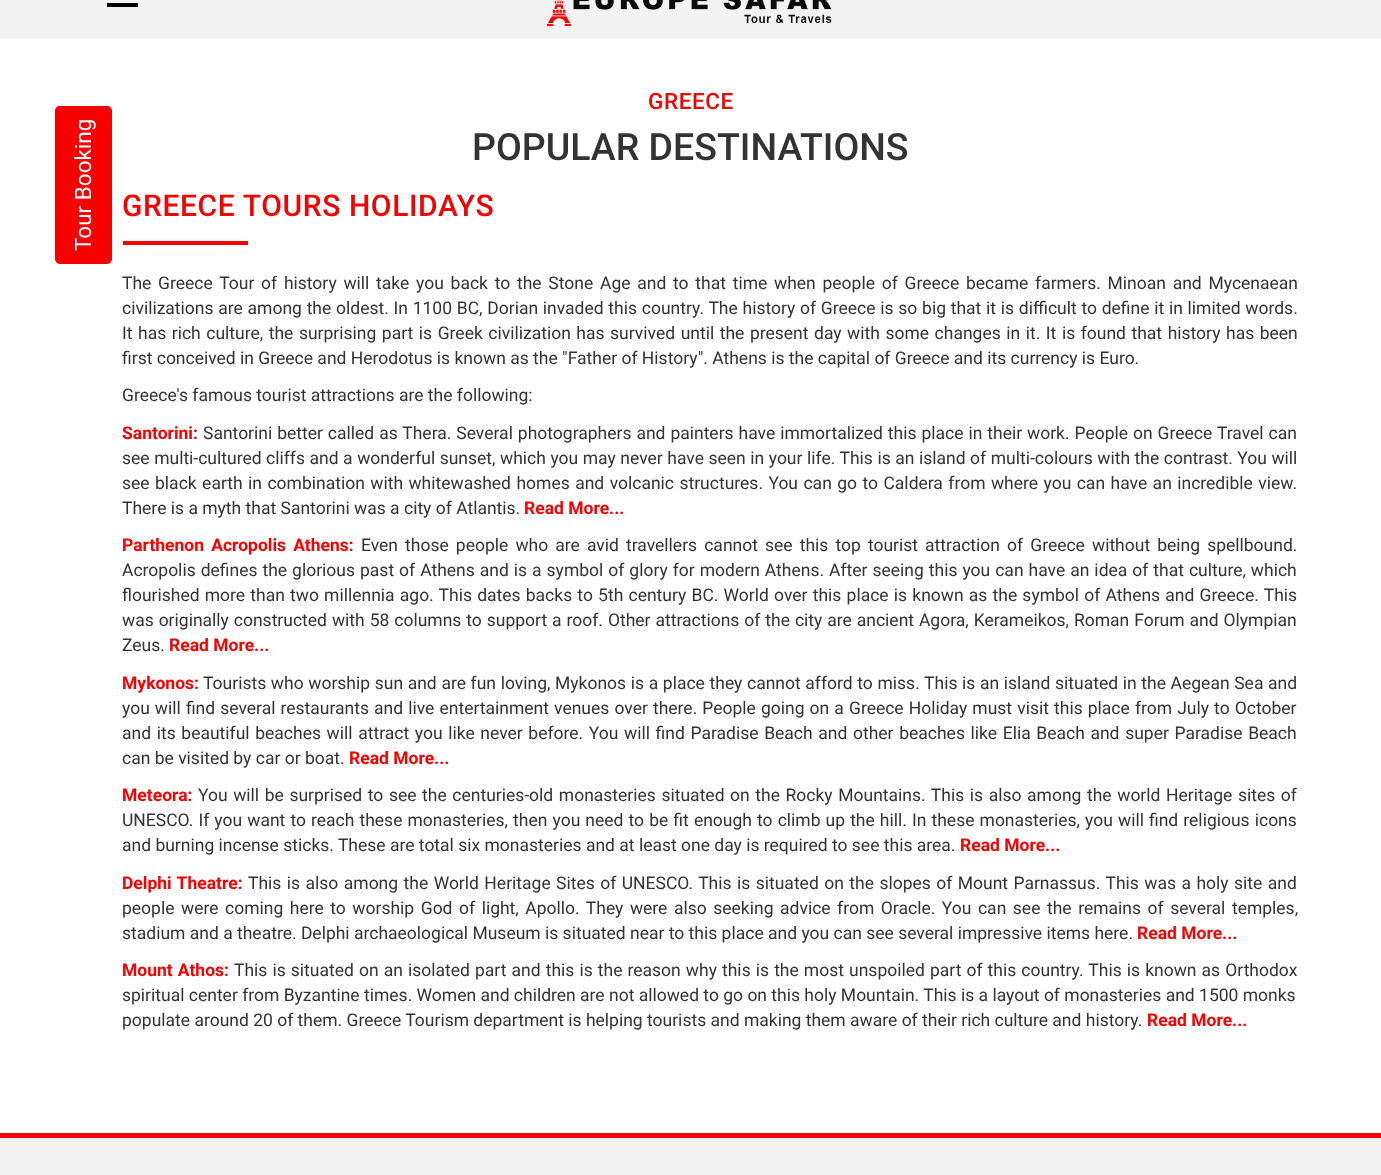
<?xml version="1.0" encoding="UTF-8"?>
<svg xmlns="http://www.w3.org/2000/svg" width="1381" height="1175">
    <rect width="100%" height="100%" fill="#FFFFFF"/>
    <rect x="0" y="0" width="1381" height="39" fill="#F3F3F3"/>
    <rect x="107" y="3" width="31" height="4" fill="#000000"/>
    <image x="547" y="0" width="285" height="26" href="img_01.png"/>
    <path d="M 55 259 V 111 C 55 108 57 106 60 106 H 107 C 110 106 112 108 112 111 V 259 C 112 261 110 264 107 264 H 60 C 57 264 55 261 55 259 Z" fill="#F70000"/>
    <text x="91" y="251" transform="rotate(-90 91 251)" font-family="Roboto" font-size="22.5" fill="#FFFFFF">Tour Booking</text>
    <text x="648" y="109" font-family="Roboto" font-size="22.5" font-weight="500" letter-spacing="0.6" fill="#F70000">GREECE</text>
    <text x="472" y="160" font-family="Roboto" font-size="37.5" font-weight="500" fill="#333333">POPULAR DESTINATIONS</text>
    <text x="122" y="216" font-family="Roboto" font-size="30" font-weight="500" letter-spacing="0.6" fill="#F70000">GREECE TOURS HOLIDAYS</text>
    <rect x="123" y="241" width="125" height="4" fill="#F70000"/>
    <text font-family="Roboto" font-size="17.5" fill="#333333">
        <tspan x="122" y="289" word-spacing="2.4">The Greece Tour of history will take you back to the Stone Age and to that time when people of Greece became farmers. Minoan and Mycenaean</tspan>
        <tspan x="122" y="314" word-spacing="0.4">civilizations are among the oldest. In 1100 BC, Dorian invaded this country. The history of Greece is so big that it is difficult to define it in limited words.</tspan>
        <tspan x="122" y="339" word-spacing="1.2">It has rich culture, the surprising part is Greek civilization has survived until the present day with some changes in it. It is found that history has been</tspan>
        <tspan x="122" y="364">first conceived in Greece and Herodotus is known as the "Father of History". Athens is the capital of Greece and its currency is Euro.</tspan>
    </text>
    <text x="122" y="401" font-family="Roboto" font-size="17.5" fill="#333333">Greece's famous tourist attractions are the following:</text>
    <text x="122" y="439" font-family="Roboto" font-size="17.5" font-weight="700" fill="#F70000">Santorini:</text>
    <text x="203" y="439" word-spacing="0.6" font-family="Roboto" font-size="17.5" fill="#333333">Santorini better called as Thera. Several photographers and painters have immortalized this place in their work. People on Greece Travel can</text>
    <text font-family="Roboto" font-size="17.5" fill="#333333">
        <tspan x="122" y="464" word-spacing="0.2">see multi-cultured cliffs and a wonderful sunset, which you may never have seen in your life. This is an island of multi-colours with the contrast. You will</tspan>
        <tspan x="122" y="489" word-spacing="1.1">see black earth in combination with whitewashed homes and volcanic structures. You can go to Caldera from where you can have an incredible view.</tspan>
        <tspan x="122" y="514">There is a myth that Santorini was a city of Atlantis.</tspan>
    </text>
    <text x="524" y="514" font-family="Roboto" font-size="17.5" font-weight="700" fill="#F70000">Read More...</text>
    <text x="122" y="551" word-spacing="2.75" font-family="Roboto" font-size="17.5" font-weight="700" fill="#F70000">Parthenon Acropolis Athens:</text>
    <text x="361" y="551" word-spacing="2.75" font-family="Roboto" font-size="17.5" fill="#333333">Even those people who are avid travellers cannot see this top tourist attraction of Greece without being spellbound.</text>
    <text font-family="Roboto" font-size="17.5" fill="#333333">
        <tspan x="122" y="576" word-spacing="0.65">Acropolis defines the glorious past of Athens and is a symbol of glory for modern Athens. After seeing this you can have an idea of that culture, which</tspan>
        <tspan x="122" y="601" word-spacing="0.85">flourished more than two millennia ago. This dates backs to 5th century BC. World over this place is known as the symbol of Athens and Greece. This</tspan>
        <tspan x="122" y="626" word-spacing="0.6">was originally constructed with 58 columns to support a roof. Other attractions of the city are ancient Agora, Kerameikos, Roman Forum and Olympian</tspan>
        <tspan x="122" y="651">Zeus.</tspan>
    </text>
    <text x="169" y="651" font-family="Roboto" font-size="17.5" font-weight="700" fill="#F70000">Read More...</text>
    <text x="122" y="689" font-family="Roboto" font-size="17.5" font-weight="700" fill="#F70000">Mykonos:</text>
    <text x="203" y="689" word-spacing="0.3" font-family="Roboto" font-size="17.5" fill="#333333">Tourists who worship sun and are fun loving, Mykonos is a place they cannot afford to miss. This is an island situated in the Aegean Sea and</text>
    <text font-family="Roboto" font-size="17.5" fill="#333333">
        <tspan x="122" y="714" word-spacing="0.75">you will find several restaurants and live entertainment venues over there. People going on a Greece Holiday must visit this place from July to October</tspan>
        <tspan x="122" y="739" word-spacing="1.3">and its beautiful beaches will attract you like never before. You will find Paradise Beach and other beaches like Elia Beach and super Paradise Beach</tspan>
        <tspan x="122" y="764">can be visited by car or boat.</tspan>
    </text>
    <text x="349" y="764" font-family="Roboto" font-size="17.5" font-weight="700" fill="#F70000">Read More...</text>
    <text x="122" y="801" font-family="Roboto" font-size="17.5" font-weight="700" fill="#F70000">Meteora:</text>
    <text x="198" y="801" word-spacing="1.25" font-family="Roboto" font-size="17.5" fill="#333333">You will be surprised to see the centuries-old monasteries situated on the Rocky Mountains. This is also among the world Heritage sites of</text>
    <text font-family="Roboto" font-size="17.5" fill="#333333">
        <tspan x="122" y="826" word-spacing="0.75">UNESCO. If you want to reach these monasteries, then you need to be fit enough to climb up the hill. In these monasteries, you will find religious icons</tspan>
        <tspan x="122" y="851">and burning incense sticks. These are total six monasteries and at least one day is required to see this area.</tspan>
    </text>
    <text x="960" y="851" font-family="Roboto" font-size="17.5" font-weight="700" fill="#F70000">Read More...</text>
    <text x="122" y="889" word-spacing="1" font-family="Roboto" font-size="17.5" font-weight="700" fill="#F70000">Delphi Theatre:</text>
    <text x="248" y="889" word-spacing="1.1" font-family="Roboto" font-size="17.5" fill="#333333">This is also among the World Heritage Sites of UNESCO. This is situated on the slopes of Mount Parnassus. This was a holy site and</text>
    <text font-family="Roboto" font-size="17.5" fill="#333333">
        <tspan x="122" y="914" word-spacing="2.2">people were coming here to worship God of light, Apollo. They were also seeking advice from Oracle. You can see the remains of several temples,</tspan>
        <tspan x="122" y="939">stadium and a theatre. Delphi archaeological Museum is situated near to this place and you can see several impressive items here.</tspan>
    </text>
    <text x="1137" y="939" font-family="Roboto" font-size="17.5" font-weight="700" fill="#F70000">Read More...</text>
    <text x="122" y="976" word-spacing="0.75" font-family="Roboto" font-size="17.5" font-weight="700" fill="#F70000">Mount Athos:</text>
    <text x="234" y="976" word-spacing="0.75" font-family="Roboto" font-size="17.5" fill="#333333">This is situated on an isolated part and this is the reason why this is the most unspoiled part of this country. This is known as Orthodox</text>
    <text font-family="Roboto" font-size="17.5" fill="#333333">
        <tspan x="122" y="1001">spiritual center from Byzantine times. Women and children are not allowed to go on this holy Mountain. This is a layout of monasteries and 1500 monks</tspan>
        <tspan x="122" y="1026">populate around 20 of them. Greece Tourism department is helping tourists and making them aware of their rich culture and history.</tspan>
    </text>
    <text x="1147" y="1026" font-family="Roboto" font-size="17.5" font-weight="700" fill="#F70000">Read More...</text>
    <rect x="0" y="1138" width="1381" height="37" fill="#F3F3F3"/>
    <rect x="0" y="1133" width="1381" height="5" fill="#F70000"/>
</svg>
